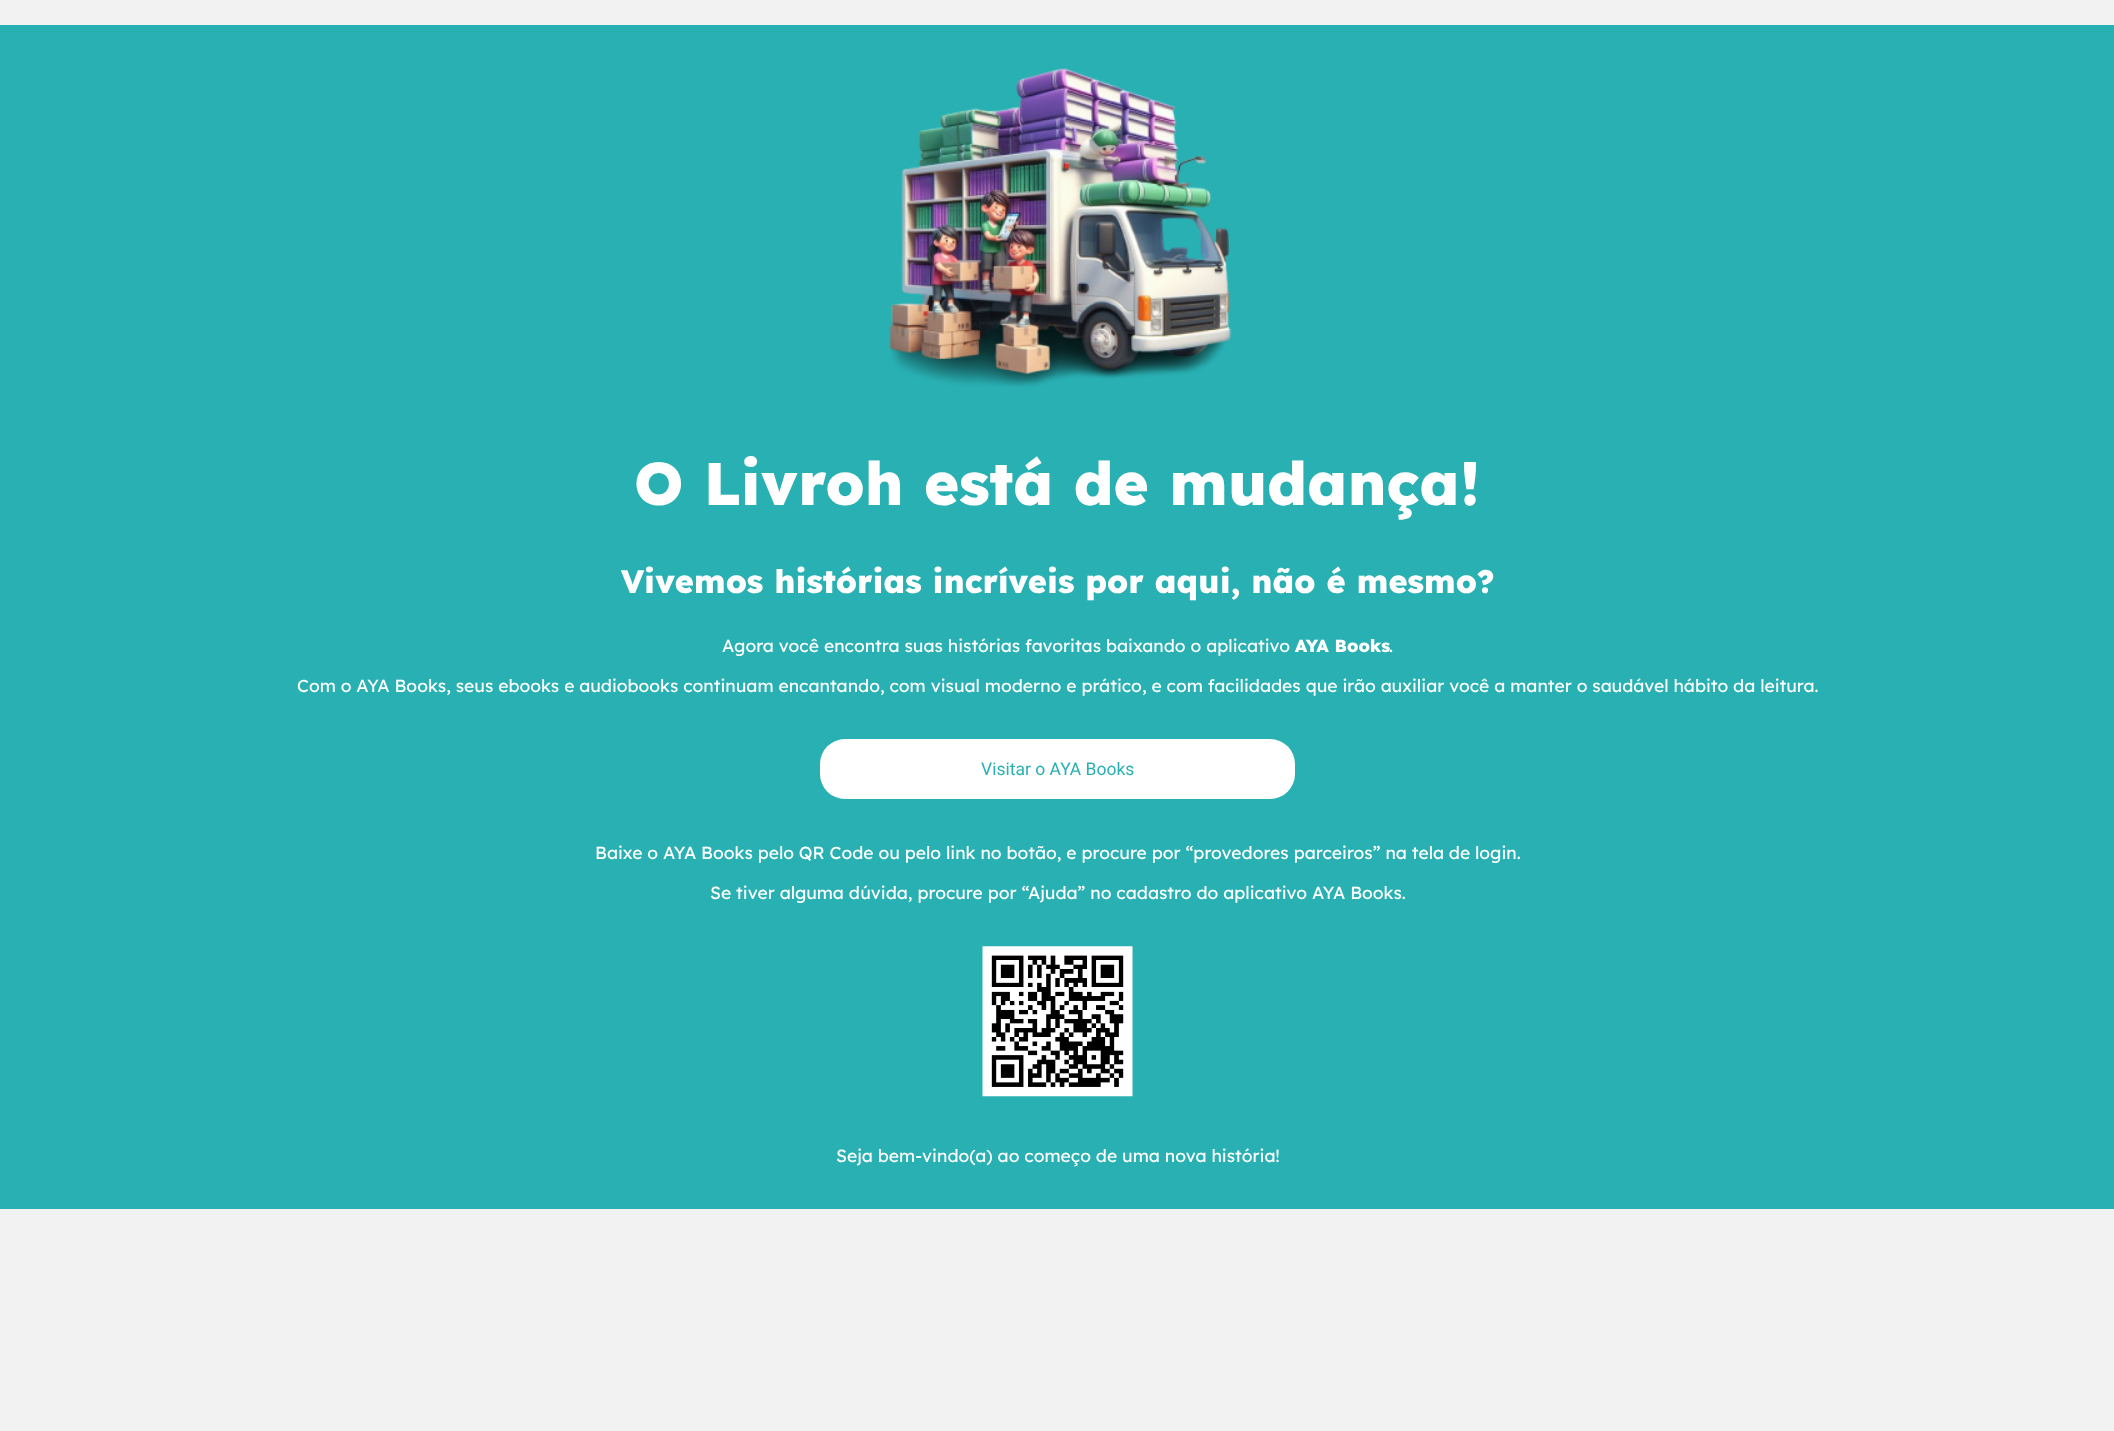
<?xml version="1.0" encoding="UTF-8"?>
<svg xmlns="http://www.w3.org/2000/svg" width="2114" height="1431">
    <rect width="100%" height="100%" fill="#F2F2F2"/>
    <rect x="0" y="25" width="2114" height="1184" fill="#29B0B3"/>
    <image x="889" y="68" width="343" height="319" href="img_01.png"/>
    <text x="634" y="505" font-family="Lexend" font-size="60" font-weight="800" fill="#FFFFFF">O Livroh está de mudança!</text>
    <text x="621" y="593" font-family="Lexend" font-size="32.5" font-weight="800" fill="#FFFFFF">Vivemos histórias incríveis por aqui, não é mesmo?</text>
    <text x="722" y="652" font-family="Lexend" font-size="17.5" fill="#FFFFFF">Agora você encontra suas histórias favoritas baixando o aplicativo</text>
    <text x="1295" y="652" font-family="Lexend" font-size="17.5" font-weight="800" fill="#FFFFFF">AYA Books</text>
    <text x="1389" y="652" font-family="Lexend" font-size="17.5" fill="#FFFFFF">.</text>
    <text x="297" y="692" font-family="Lexend" font-size="17.5" fill="#FFFFFF">Com o AYA Books, seus ebooks e audiobooks continuam encantando, com visual moderno e prático, e com facilidades que irão auxiliar você a manter o saudável hábito da leitura.</text>
    <rect x="820" y="739" width="475" height="60" rx="25" fill="#FFFFFF"/>
    <text x="981" y="775" font-family="Roboto" font-size="17.5" fill="#29B0B3">Visitar o AYA Books</text>
    <text x="595" y="859" font-family="Lexend" font-size="17.5" fill="#FFFFFF">Baixe o AYA Books pelo QR Code ou pelo link no botão, e procure por “provedores parceiros” na tela de login.</text>
    <text x="710" y="899" font-family="Lexend" font-size="17.5" fill="#FFFFFF">Se tiver alguma dúvida, procure por “Ajuda” no cadastro do aplicativo AYA Books.</text>
    <image x="982" y="946" width="151" height="151" href="img_02.png"/>
    <text x="836" y="1162" font-family="Lexend" font-size="17.5" fill="#FFFFFF">Seja bem-vindo(a) ao começo de uma nova história!</text>
</svg>
